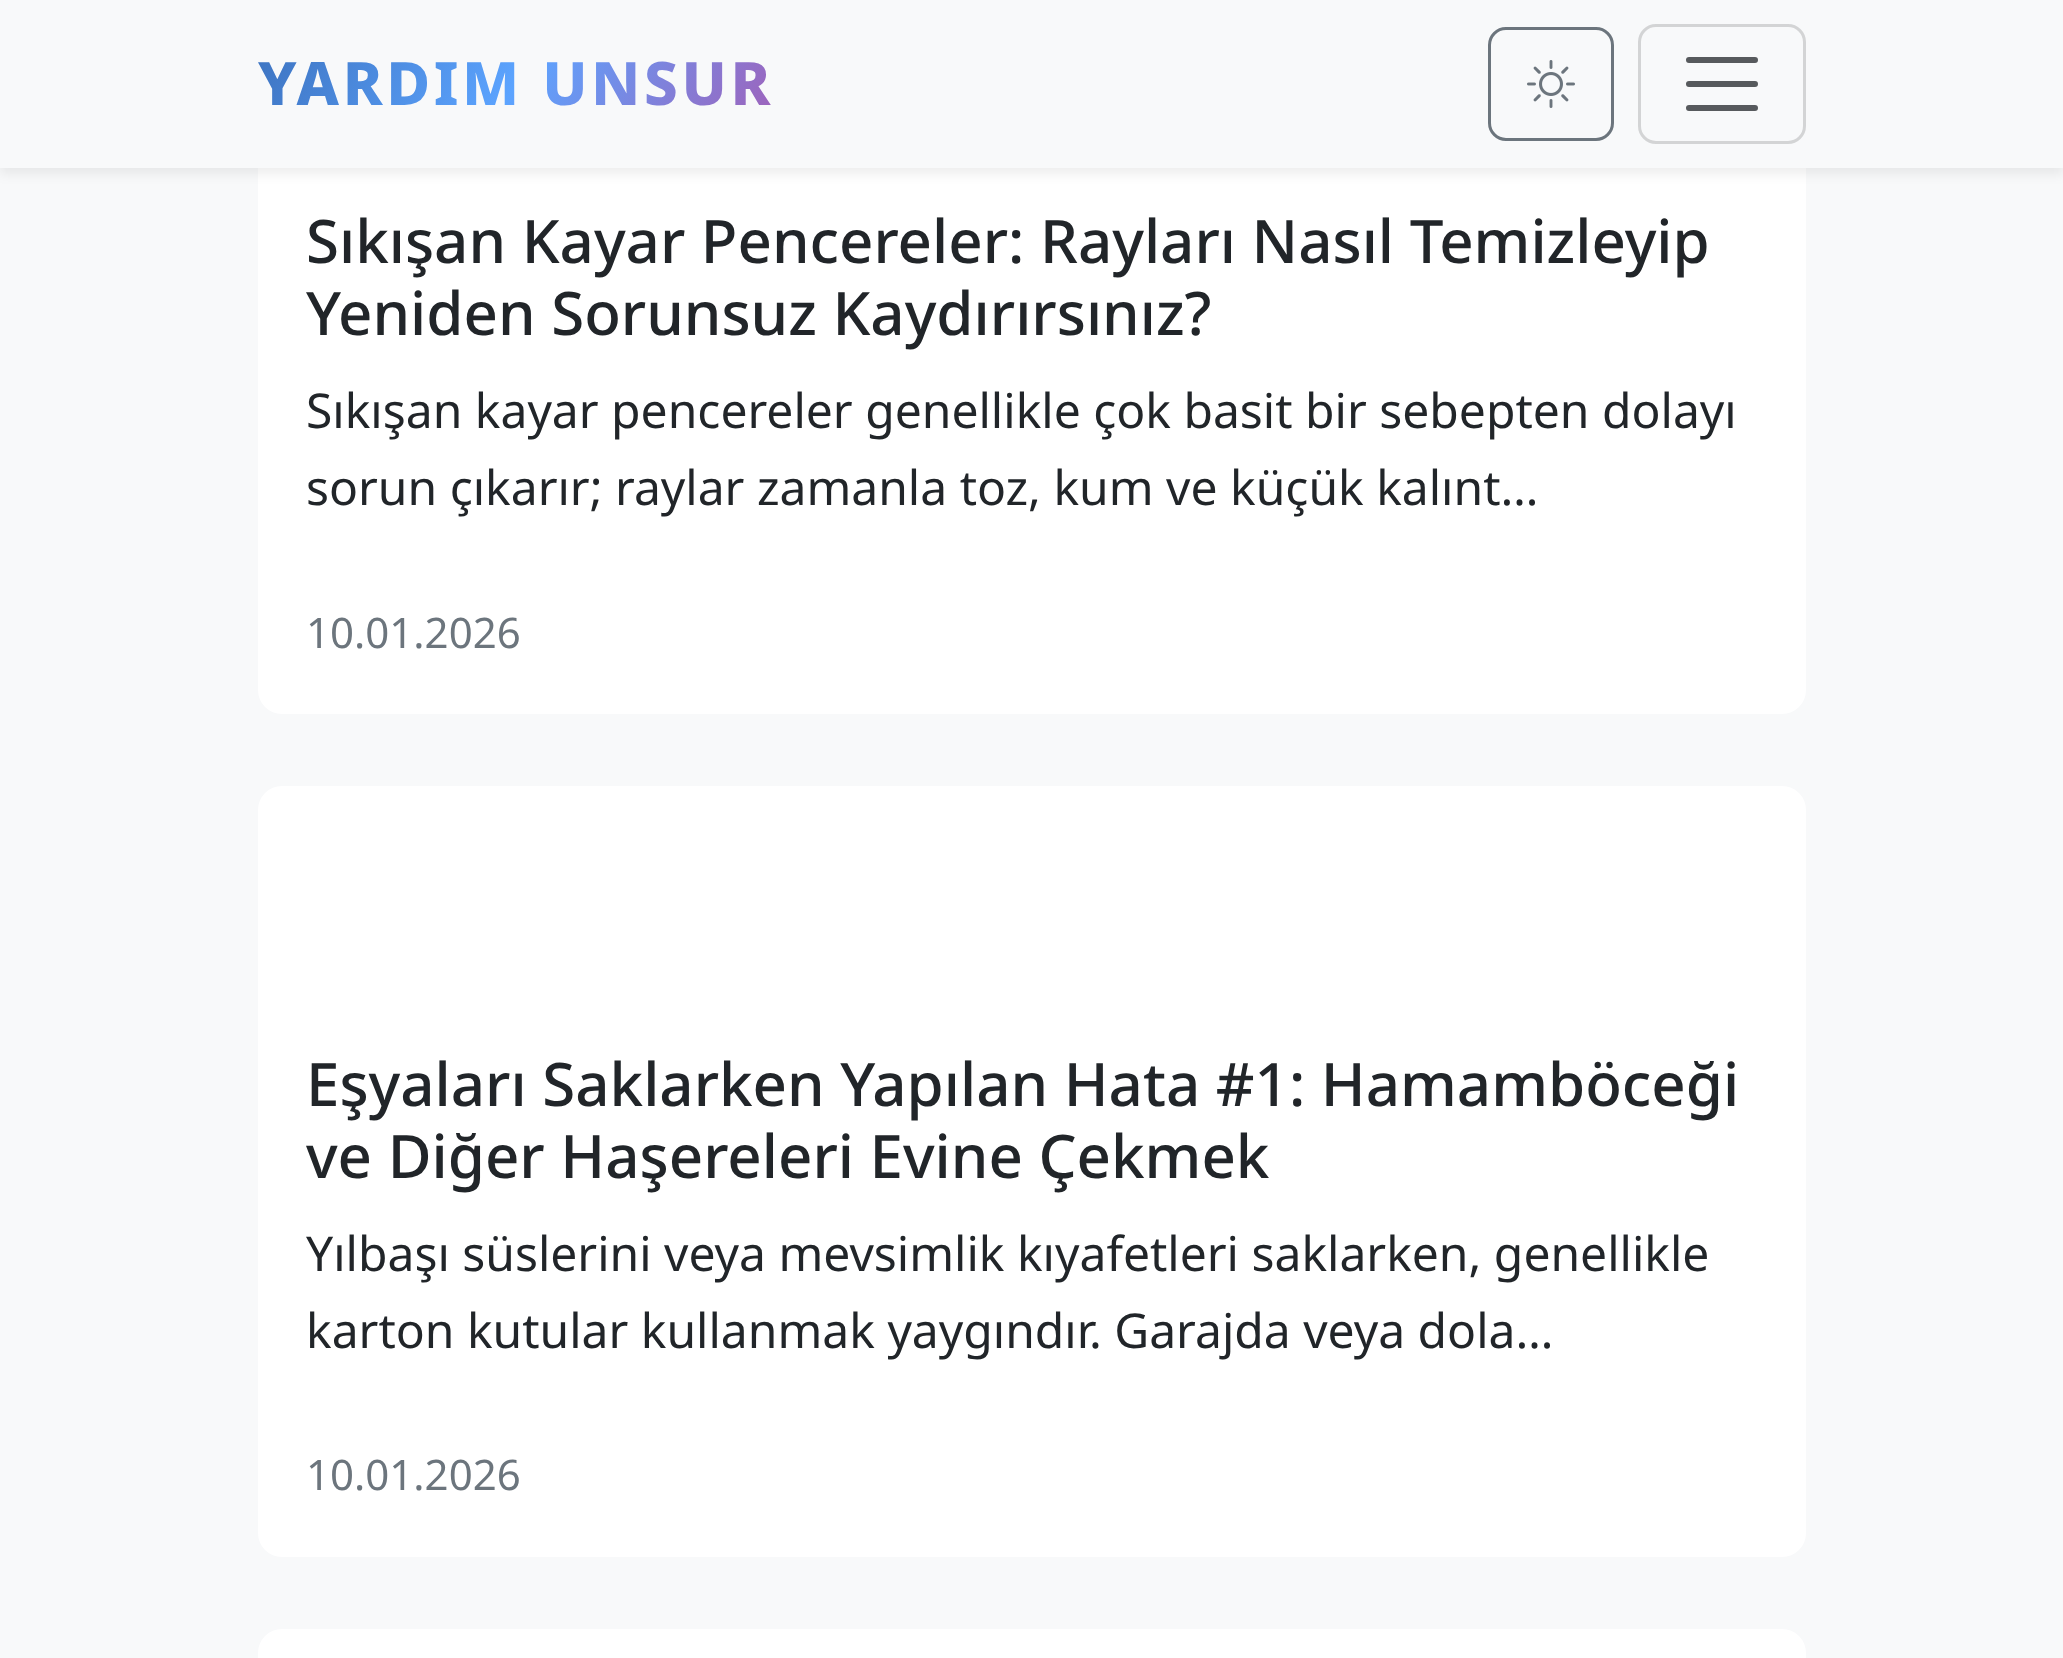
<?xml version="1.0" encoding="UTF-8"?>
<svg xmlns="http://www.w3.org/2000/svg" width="2063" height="1658">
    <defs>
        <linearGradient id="g1" gradientUnits="userSpaceOnUse" x1="302" y1="-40" x2="730" y2="208"><stop offset="0" stop-color="#3D73C0"/><stop offset="0.5" stop-color="#5CA4FF"/><stop offset="1" stop-color="#A061B9"/></linearGradient>
        <filter id="blur1" x="-50%" y="-200%" width="200%" height="500%"><feGaussianBlur stdDeviation="6"/></filter>
    </defs>
    <rect width="100%" height="100%" fill="#F8F9FA"/>
    <rect x="258" y="-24" width="1548" height="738" rx="24" fill="#FFFFFF"/>
    <rect x="0" y="6" width="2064" height="168" fill="#000000" fill-opacity="0.07" filter="url(#blur1)"/>
    <rect x="0" y="0" width="2063" height="168" fill="#F8F9FA"/>
    <text x="258" y="105" font-family="Noto Sans" font-size="60" font-weight="800" letter-spacing="3.6" fill="url(#g1)">YARDIM UNSUR</text>
    <rect x="1489.5" y="28.5" width="123" height="111" rx="16.5" fill="none" stroke="#6C757D" stroke-width="3"/>
    <image x="1527" y="60" width="48" height="48" href="img_01.png"/>
    <rect x="1639.5" y="25.5" width="165" height="117" rx="16.5" fill="none" stroke="#D3D4D5" stroke-width="3"/>
    <path d="M 1689 60 H 1755 M 1689 84 H 1755 M 1689 108 H 1755" fill="none" stroke="#575A5D" stroke-width="6" stroke-linecap="round"/>
    <text font-family="Noto Sans" font-size="60" font-weight="500" fill="#212529">
        <tspan x="306" y="263">Sıkışan Kayar Pencereler: Rayları Nasıl Temizleyip</tspan>
        <tspan x="306" y="335">Yeniden Sorunsuz Kaydırırsınız?</tspan>
    </text>
    <text font-family="Noto Sans" font-size="48" fill="#212529">
        <tspan x="306" y="428">Sıkışan kayar pencereler genellikle çok basit bir sebepten dolayı</tspan>
        <tspan x="306" y="505">sorun çıkarır; raylar zamanla toz, kum ve küçük kalınt…</tspan>
    </text>
    <text x="306" y="648" font-family="Noto Sans" font-size="42" fill="#6C757D">10.01.2026</text>
    <rect x="258" y="786" width="1548" height="771" rx="24" fill="#FFFFFF"/>
    <text font-family="Noto Sans" font-size="60" font-weight="500" fill="#212529">
        <tspan x="306" y="1106">Eşyaları Saklarken Yapılan Hata #1: Hamamböceği</tspan>
        <tspan x="306" y="1178">ve Diğer Haşereleri Evine Çekmek</tspan>
    </text>
    <text font-family="Noto Sans" font-size="48" fill="#212529">
        <tspan x="306" y="1271">Yılbaşı süslerini veya mevsimlik kıyafetleri saklarken, genellikle</tspan>
        <tspan x="306" y="1348">karton kutular kullanmak yaygındır. Garajda veya dola…</tspan>
    </text>
    <text x="306" y="1490" font-family="Noto Sans" font-size="42" fill="#6C757D">10.01.2026</text>
    <rect x="258" y="1629" width="1548" height="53" rx="24" fill="#FFFFFF"/>
</svg>
